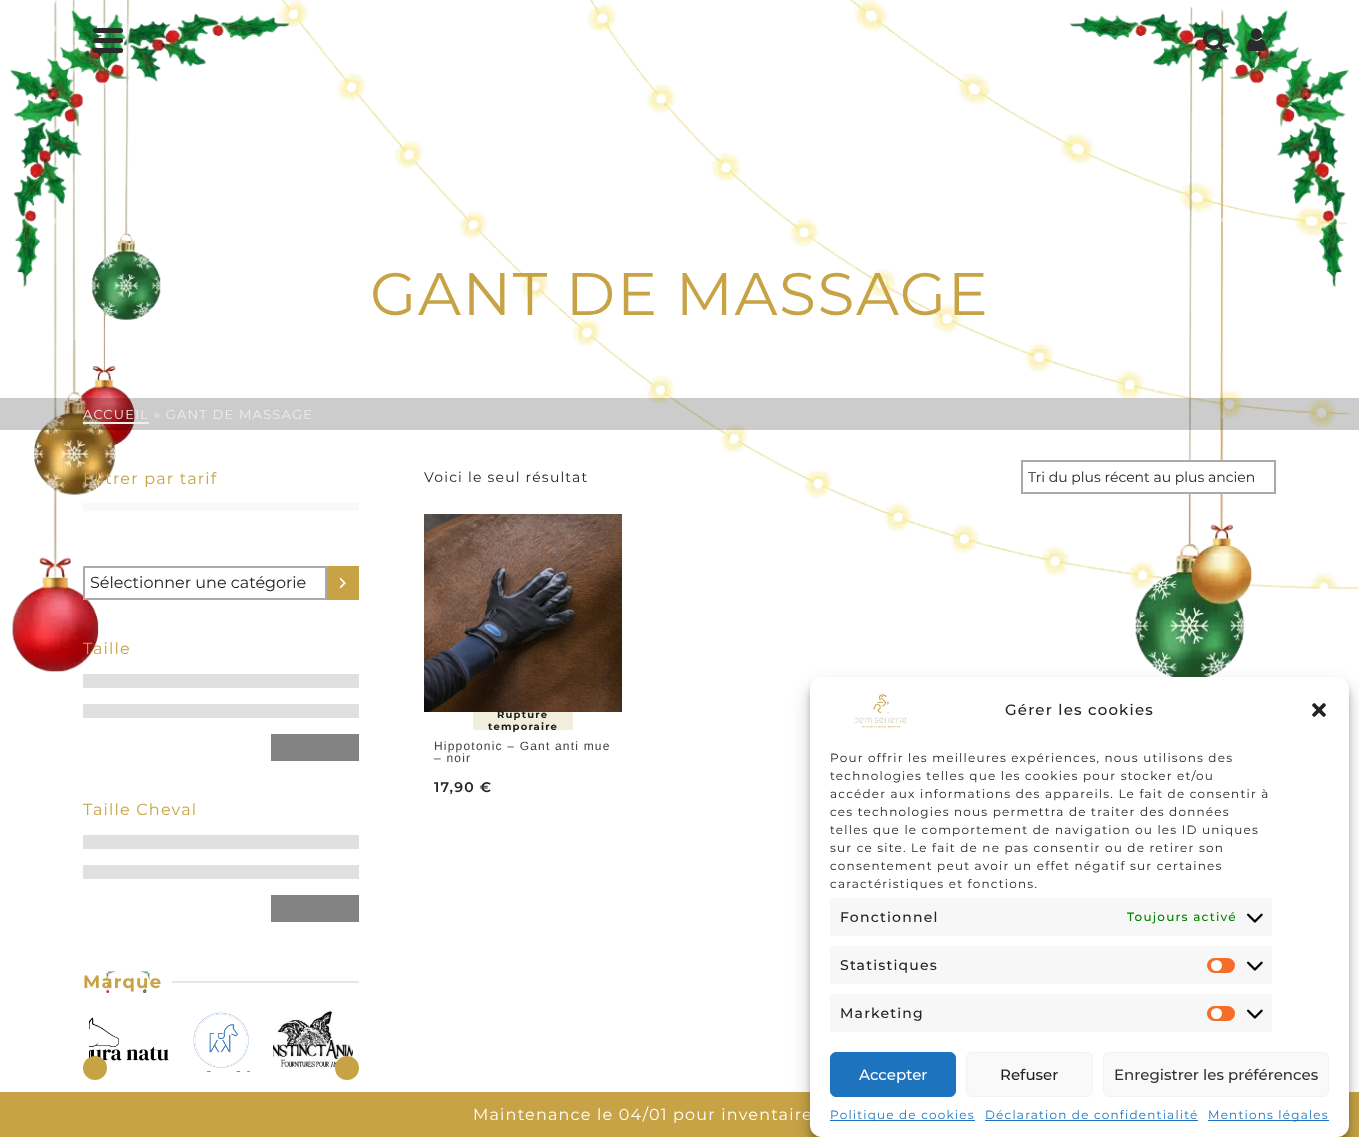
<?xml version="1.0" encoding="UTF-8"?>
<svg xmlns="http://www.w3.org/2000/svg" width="1359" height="1137">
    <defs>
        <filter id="blur1" x="-50%" y="-200%" width="200%" height="500%"><feGaussianBlur stdDeviation="3"/></filter>
        <filter id="blur2" x="-50%" y="-200%" width="200%" height="500%"><feGaussianBlur stdDeviation="10"/></filter>
    </defs>
    <rect width="100%" height="100%" fill="#FFFFFF"/>
    <image x="9" y="0" width="1350" height="677" href="img_03.png"/>
    <rect x="93" y="28" width="30" height="5" rx="2.5" fill="#2B2B2B"/>
    <rect x="93" y="38" width="30" height="5" rx="2.5" fill="#2B2B2B"/>
    <rect x="93" y="48" width="30" height="5" rx="2.5" fill="#2B2B2B"/>
    <image x="1203" y="28" width="25" height="25" href="img_01.png"/>
    <image x="1247" y="28" width="19" height="23" href="img_02.png"/>
    <text x="370" y="315" font-family="Montserrat" font-size="60" font-weight="100" letter-spacing="1.5" fill="#C7A345">GANT DE MASSAGE</text>
    <rect x="0" y="398" width="1359" height="32" fill="#000000" fill-opacity="0.2"/>
    <text x="83" y="419" font-family="Montserrat" font-size="13" font-weight="100" letter-spacing="1.2" fill="#EEEEEE">ACCUEIL » GANT DE MASSAGE</text>
    <rect x="83" y="422" width="66" height="2" fill="#EEEEEE"/>
    <text x="83" y="484" font-family="Montserrat" font-size="16" font-weight="100" letter-spacing="1.2" fill="#C7A345">Filtrer par tarif</text>
    <rect x="83" y="503" width="276" height="8" fill="#F9F9F9"/>
    <rect x="85" y="596" width="2" height="2" fill="#FFFFFF"/>
    <rect x="84" y="567" width="242" height="32" fill="none" stroke="#AAAAAA" stroke-width="2"/>
    <text x="90" y="588" font-family="Montserrat" font-size="16" font-weight="100" fill="#222222">Sélectionner une catégorie</text>
    <rect x="327" y="566" width="32" height="34" fill="#C7A345"/>
    <image x="339" y="577" width="7" height="12" href="img_04.png"/>
    <text x="83" y="654" font-family="Montserrat" font-size="16" font-weight="100" letter-spacing="1.2" fill="#C7A345">Taille</text>
    <rect x="83" y="674" width="276" height="14" fill="#E0E0E0"/>
    <rect x="83" y="704" width="276" height="14" fill="#E0E0E0"/>
    <rect x="271" y="734" width="88" height="27" fill="#838383"/>
    <text x="83" y="815" font-family="Montserrat" font-size="16" font-weight="100" letter-spacing="1.2" fill="#C7A345">Taille Cheval</text>
    <rect x="83" y="835" width="276" height="14" fill="#E0E0E0"/>
    <rect x="83" y="865" width="276" height="14" fill="#E0E0E0"/>
    <rect x="271" y="895" width="88" height="27" fill="#838383"/>
    <image x="106" y="971" width="44" height="22" href="img_05.png"/>
    <text x="83" y="988" font-family="Montserrat" font-size="18" font-weight="700" letter-spacing="1.2" fill="#C7A345">Marque</text>
    <rect x="172" y="981" width="187" height="2" fill="#E6E6E6"/>
    <image x="89" y="1017" width="80" height="44" href="img_06.png"/>
    <image x="193" y="1012" width="58" height="60" href="img_07.png"/>
    <image x="273" y="1010" width="80" height="58" href="img_08.png"/>
    <circle cx="95" cy="1068" r="12" fill="#C7A345"/>
    <circle cx="347" cy="1068" r="12" fill="#C7A345"/>
    <text x="424" y="482" font-family="Montserrat" font-size="14" font-weight="100" letter-spacing="1.2" fill="#2B2222">Voici le seul résultat</text>
    <rect x="1188" y="462" width="36" height="30" fill="#FFFFFF"/>
    <rect x="1022" y="461" width="253" height="32" fill="none" stroke="#AAAAAA" stroke-width="2"/>
    <text x="1028" y="482" font-family="Montserrat" font-size="14" font-weight="100" fill="#222222">Tri du plus récent au plus ancien</text>
    <image x="424" y="514" width="198" height="198" href="img_09.png"/>
    <rect x="473" y="712" width="100" height="18" rx="1" fill="#F2EEDC"/>
    <text x="497" y="718" font-family="Montserrat" font-size="10" font-weight="700" letter-spacing="1.2" fill="#1C1B1C">Rupture</text>
    <text x="488" y="730" font-family="Montserrat" font-size="10" font-weight="700" letter-spacing="1.2" fill="#1C1B1C">temporaire</text>
    <text font-family="Liberation Sans" font-size="12" letter-spacing="1.2" fill="#3F3F3F">
        <tspan x="434" y="750">Hippotonic – Gant anti mue</tspan>
        <tspan x="434" y="762">– noir</tspan>
    </text>
    <text x="434" y="792" font-family="Montserrat" font-size="14" font-weight="600" letter-spacing="1.2" fill="#2B2222">17,90 €</text>
    <rect x="0" y="1092" width="1359" height="45" fill="#C7A345"/>
    <text x="473" y="1120" font-family="Montserrat" font-size="16" font-weight="100" letter-spacing="1.2" fill="#FFFFFF">Maintenance le 04/01 pour inventaire</text>
    <rect x="810" y="683" width="539" height="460" rx="12" fill="#000000" fill-opacity="0.23" filter="url(#blur1)"/>
    <rect x="810" y="687" width="539" height="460" rx="12" fill="#000000" fill-opacity="0.19" filter="url(#blur2)"/>
    <rect x="810" y="677" width="539" height="460" rx="12" fill="#FFFFFF"/>
    <image x="854" y="693" width="53" height="35" href="img_10.png"/>
    <text x="1005" y="715" font-family="Montserrat" font-size="15" font-weight="500" letter-spacing="1.2" fill="#222222">Gérer les cookies</text>
    <image x="1312" y="703" width="14" height="14" href="img_11.png"/>
    <text font-family="Montserrat" font-size="12" font-weight="100" letter-spacing="1.2" fill="#222222">
        <tspan x="830" y="762">Pour offrir les meilleures expériences, nous utilisons des</tspan>
        <tspan x="830" y="780">technologies telles que les cookies pour stocker et/ou</tspan>
        <tspan x="830" y="798">accéder aux informations des appareils. Le fait de consentir à</tspan>
        <tspan x="830" y="816">ces technologies nous permettra de traiter des données</tspan>
        <tspan x="830" y="834">telles que le comportement de navigation ou les ID uniques</tspan>
        <tspan x="830" y="852">sur ce site. Le fait de ne pas consentir ou de retirer son</tspan>
        <tspan x="830" y="870">consentement peut avoir un effet négatif sur certaines</tspan>
        <tspan x="830" y="888">caractéristiques et fonctions.</tspan>
    </text>
    <rect x="830" y="898" width="442" height="38" fill="#F7F7F7"/>
    <text x="840" y="922" font-family="Montserrat" font-size="14" font-weight="500" letter-spacing="1.2" fill="#222222">Fonctionnel</text>
    <text x="1127" y="921" font-family="Montserrat" font-size="12" font-weight="500" letter-spacing="1.2" fill="#008000">Toujours activé</text>
    <image x="1247" y="913" width="16" height="10" href="img_12.png"/>
    <rect x="830" y="946" width="442" height="38" fill="#F7F7F7"/>
    <text x="840" y="970" font-family="Montserrat" font-size="14" font-weight="500" letter-spacing="1.2" fill="#222222">Statistiques</text>
    <rect x="1207" y="958" width="28" height="15" rx="7.5" fill="#F56E28"/>
    <circle cx="1216.5" cy="965.5" r="5.5" fill="#FFFFFF"/>
    <image x="1247" y="961" width="16" height="10" href="img_12.png"/>
    <rect x="830" y="994" width="442" height="38" fill="#F7F7F7"/>
    <text x="840" y="1018" font-family="Montserrat" font-size="14" font-weight="500" letter-spacing="1.2" fill="#222222">Marketing</text>
    <rect x="1207" y="1006" width="28" height="15" rx="7.5" fill="#F56E28"/>
    <circle cx="1216.5" cy="1013.5" r="5.5" fill="#FFFFFF"/>
    <image x="1247" y="1009" width="16" height="10" href="img_12.png"/>
    <rect x="830.5" y="1052.5" width="125" height="44" rx="5.5" fill="#1E73BE" stroke="#1E73BE"/>
    <text x="859" y="1080" font-family="Montserrat" font-size="15" font-weight="500" fill="#FFFFFF">Accepter</text>
    <rect x="966.5" y="1052.5" width="126" height="44" rx="5.5" fill="#F9F9F9" stroke="#F2F2F2"/>
    <text x="1000" y="1080" font-family="Montserrat" font-size="15" font-weight="500" fill="#222222">Refuser</text>
    <rect x="1103.5" y="1052.5" width="225" height="44" rx="5.5" fill="#F9F9F9" stroke="#F2F2F2"/>
    <text x="1114" y="1080" font-family="Montserrat" font-size="15" font-weight="500" fill="#333333">Enregistrer les préférences</text>
    <rect x="830" y="1120" width="145" height="1" fill="#1E73BE"/>
    <text x="830" y="1119" font-family="Montserrat" font-size="12" font-weight="100" letter-spacing="1.2" fill="#1E73BE">Politique de cookies</text>
    <text x="985" y="1119" font-family="Montserrat" font-size="12" font-weight="100" letter-spacing="1.2" fill="#1E73BE">Déclaration de confidentialité</text>
    <rect x="985" y="1120" width="213" height="1" fill="#1E73BE"/>
    <rect x="1208" y="1120" width="121" height="1" fill="#1E73BE"/>
    <text x="1208" y="1119" font-family="Montserrat" font-size="12" font-weight="100" letter-spacing="1.2" fill="#1E73BE">Mentions légales</text>
</svg>
